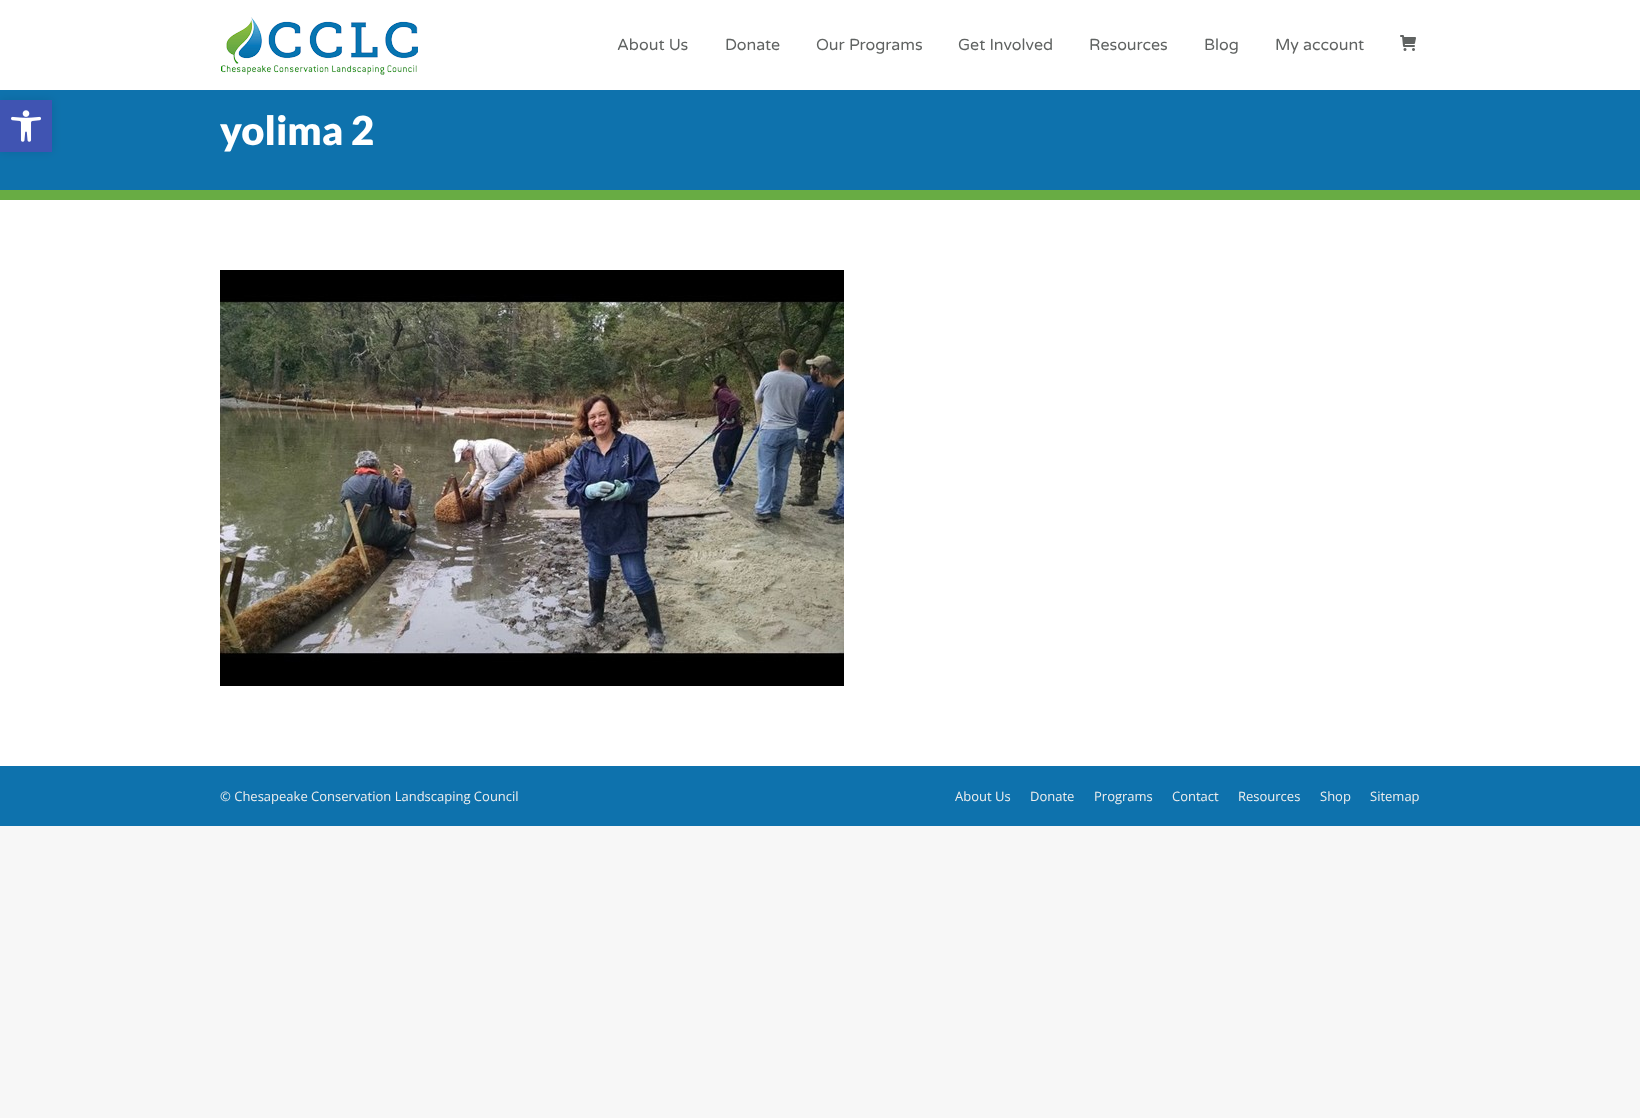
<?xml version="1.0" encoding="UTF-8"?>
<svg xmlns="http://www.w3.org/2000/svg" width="1640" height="1118">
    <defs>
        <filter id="blur1" x="-50%" y="-200%" width="200%" height="500%"><feGaussianBlur stdDeviation="5"/></filter>
    </defs>
    <rect width="100%" height="100%" fill="#F7F7F7"/>
    <rect x="0" y="0" width="1640" height="766" fill="#FFFFFF"/>
    <rect x="0" y="90" width="1640" height="100" fill="#0E72AD"/>
    <rect x="0" y="100" width="52" height="52" fill="#000000" fill-opacity="0.1" filter="url(#blur1)"/>
    <rect x="0" y="100" width="52" height="52" fill="#4054B2"/>
    <image x="11" y="110" width="30" height="32" href="img_01.png"/>
    <image x="221" y="17" width="197" height="58" href="img_02.png"/>
    <text x="617" y="50" font-family="Varela Round" font-size="16" fill="#606362">About Us</text>
    <text x="725" y="50" font-family="Varela Round" font-size="16" fill="#606362">Donate</text>
    <text x="816" y="50" font-family="Varela Round" font-size="16" fill="#606362">Our Programs</text>
    <text x="958" y="50" font-family="Varela Round" font-size="16" fill="#606362">Get Involved</text>
    <text x="1089" y="50" font-family="Varela Round" font-size="16" fill="#606362">Resources</text>
    <text x="1204" y="50" font-family="Varela Round" font-size="16" fill="#606362">Blog</text>
    <text x="1275" y="50" font-family="Varela Round" font-size="16" fill="#606362">My account</text>
    <image x="1400" y="35" width="16" height="16" href="img_03.png"/>
    <rect x="0" y="190" width="1640" height="10" fill="#68AC44"/>
    <text x="220" y="145" font-family="Lato" font-size="40" font-weight="900" fill="#FFFFFF">yolima 2</text>
    <image x="220" y="270" width="624" height="416" href="img_04.png"/>
    <rect x="0" y="766" width="1640" height="60" fill="#0E72AD"/>
    <text x="220" y="801" font-family="Open Sans" font-size="13" fill="#EEEEEE">© Chesapeake Conservation Landscaping Council</text>
    <text x="955" y="801" font-family="Open Sans" font-size="13" fill="#EEEEEE">About Us</text>
    <text x="1030" y="801" font-family="Open Sans" font-size="13" fill="#EEEEEE">Donate</text>
    <text x="1094" y="801" font-family="Open Sans" font-size="13" fill="#EEEEEE">Programs</text>
    <text x="1172" y="801" font-family="Open Sans" font-size="13" fill="#EEEEEE">Contact</text>
    <text x="1238" y="801" font-family="Open Sans" font-size="13" fill="#EEEEEE">Resources</text>
    <text x="1320" y="801" font-family="Open Sans" font-size="13" fill="#EEEEEE">Shop</text>
    <text x="1370" y="801" font-family="Open Sans" font-size="13" fill="#EEEEEE">Sitemap</text>
</svg>
